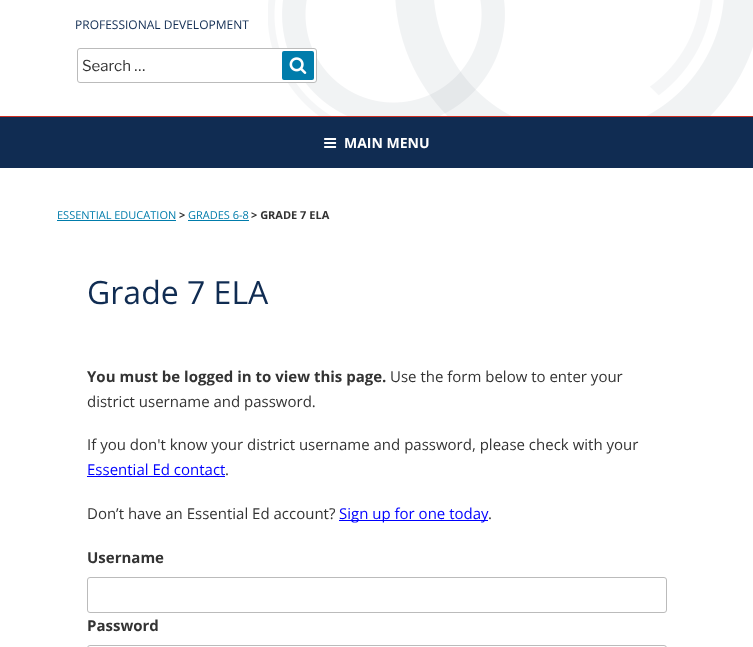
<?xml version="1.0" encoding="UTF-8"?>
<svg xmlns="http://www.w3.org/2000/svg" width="753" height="647">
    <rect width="100%" height="100%" fill="#FFFFFF"/>
    <image x="268" y="0" width="485" height="116" href="img_01.png"/>
    <text x="75" y="29" font-family="Open Sans" font-size="12" fill="#102C52">PROFESSIONAL DEVELOPMENT</text>
    <rect x="77.5" y="48.5" width="239" height="34" rx="2.5" fill="#FFFFFF" stroke="#BBBBBB"/>
    <text x="82" y="71" font-family="Libre Franklin" font-size="15" fill="#333333">Search …</text>
    <rect x="282" y="51" width="32" height="29" rx="2" fill="#007CAB"/>
    <image x="289" y="57" width="18" height="17" href="img_02.png"/>
    <rect x="0" y="117" width="753" height="51" fill="#102C52"/>
    <rect x="0" y="116" width="753" height="1" fill="#CD2F22"/>
    <image x="324" y="138" width="13" height="10" href="img_03.png"/>
    <text x="344" y="148" font-family="Open Sans" font-size="14" font-weight="700" fill="#FFFFFF">MAIN MENU</text>
    <text x="57" y="219" font-family="Open Sans" font-size="11" fill="#007CAB">ESSENTIAL EDUCATION</text>
    <rect x="57" y="220" width="119" height="1" fill="#007CAB"/>
    <text x="179" y="219" font-family="Open Sans" font-size="11" font-weight="700" fill="#333333">&gt;</text>
    <text x="188" y="219" font-family="Open Sans" font-size="11" fill="#007CAB">GRADES 6-8</text>
    <rect x="188" y="220" width="61" height="1" fill="#007CAB"/>
    <text x="251" y="219" font-family="Open Sans" font-size="11" font-weight="700" fill="#333333">&gt; GRADE 7 ELA</text>
    <text x="87" y="304" font-family="Open Sans" font-size="32" fill="#102C52">Grade 7 ELA</text>
    <text x="87" y="382" font-family="Open Sans" font-size="15" font-weight="700" fill="#333333">You must be logged in to view this page.</text>
    <text x="390" y="382" font-family="Open Sans" font-size="15" fill="#333333">Use the form below to enter your</text>
    <text x="87" y="407" font-family="Open Sans" font-size="15" fill="#333333">district username and password.</text>
    <text x="87" y="450" font-family="Open Sans" font-size="15" fill="#333333">If you don't know your district username and password, please check with your</text>
    <text x="87" y="475" font-family="Open Sans" font-size="15" fill="#0000FF">Essential Ed contact</text>
    <rect x="87" y="476" width="138" height="1" fill="#0000FF"/>
    <text x="225" y="475" font-family="Open Sans" font-size="15" fill="#333333">.</text>
    <text x="87" y="519" font-family="Open Sans" font-size="15" fill="#333333">Don’t have an Essential Ed account?</text>
    <rect x="339" y="520" width="149" height="1" fill="#0000FF"/>
    <text x="339" y="519" font-family="Open Sans" font-size="15" fill="#0000FF">Sign up for one today</text>
    <text x="488" y="519" font-family="Open Sans" font-size="15" fill="#333333">.</text>
    <text x="87" y="563" font-family="Open Sans" font-size="15" font-weight="700" fill="#333333">Username</text>
    <rect x="87.5" y="577.5" width="579" height="35" rx="2.5" fill="none" stroke="#BBBBBB"/>
    <text x="87" y="631" font-family="Open Sans" font-size="15" font-weight="700" fill="#333333">Password</text>
    <rect x="87.5" y="645.5" width="579" height="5" rx="2.5" fill="none" stroke="#BBBBBB"/>
</svg>
